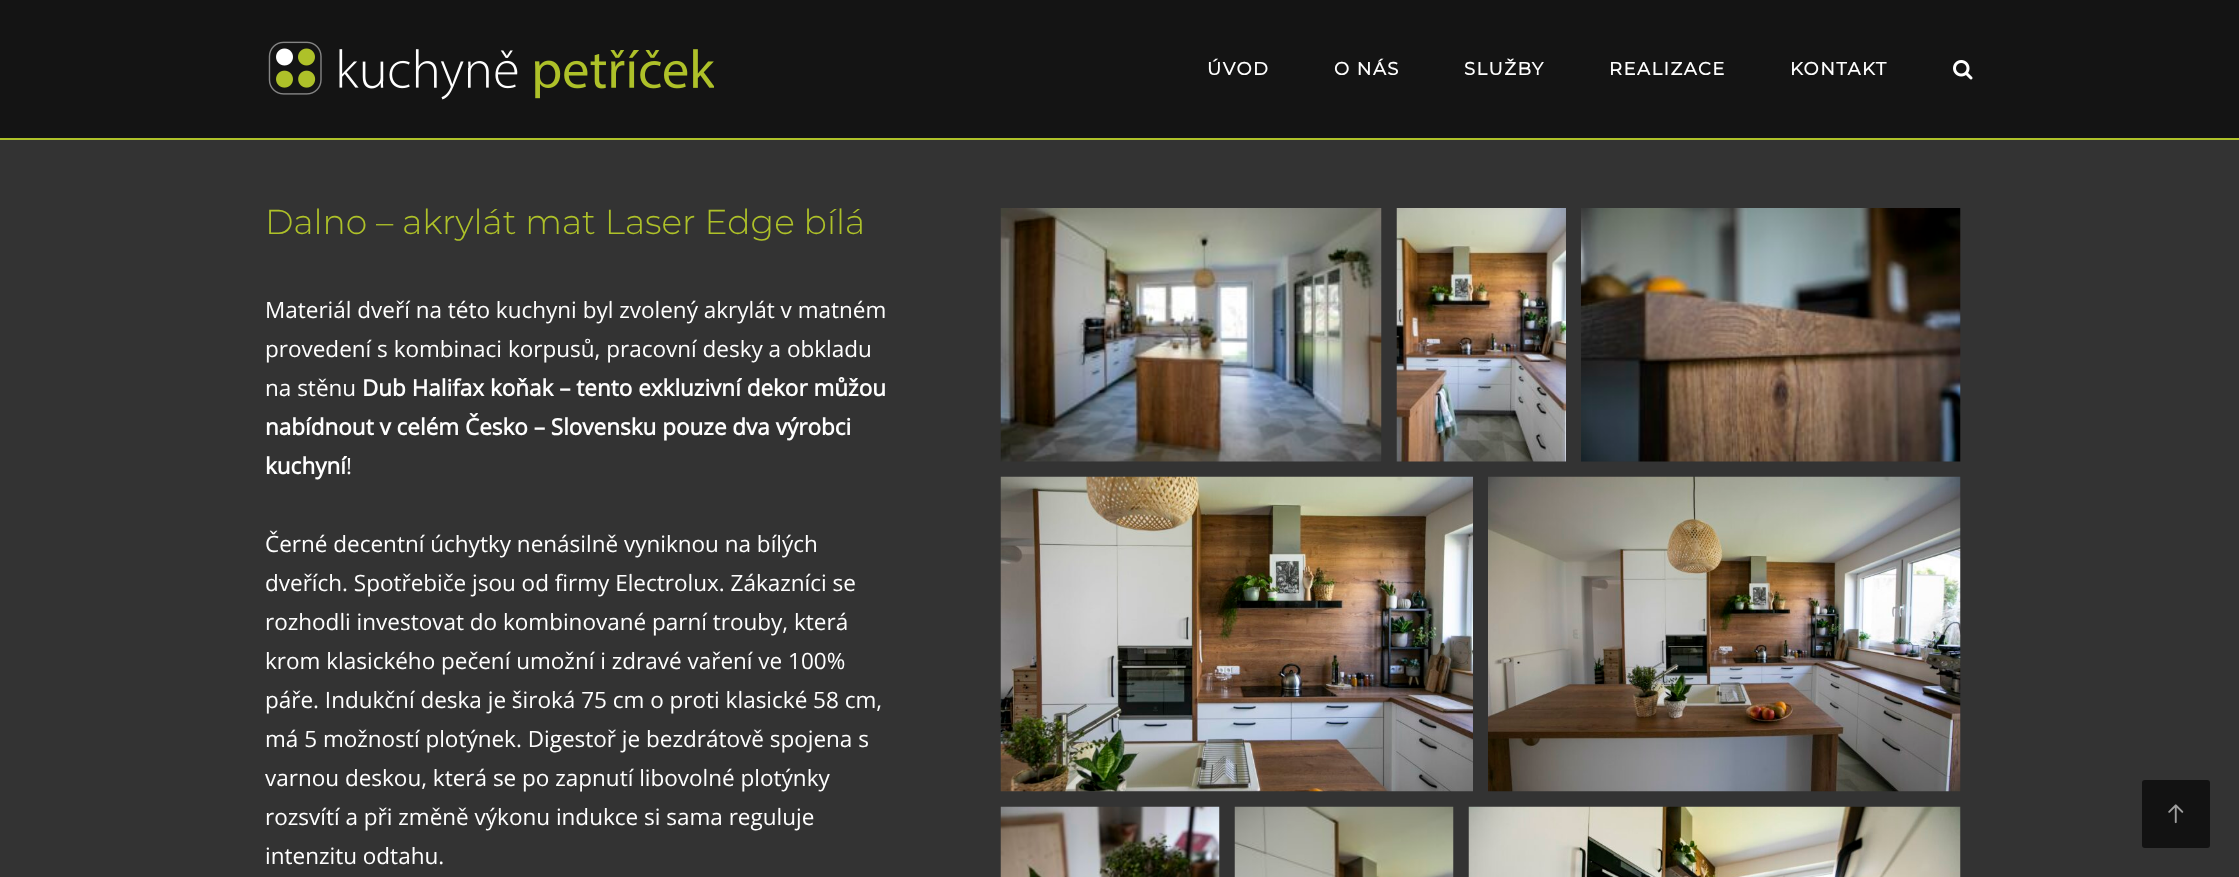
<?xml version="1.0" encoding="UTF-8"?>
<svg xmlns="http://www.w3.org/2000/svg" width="2239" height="877">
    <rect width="100%" height="100%" fill="#333333"/>
    <rect x="0" y="0" width="2239" height="138" fill="#141414"/>
    <rect x="0" y="138" width="2239" height="2" fill="#AEC129"/>
    <image x="268" y="41" width="446" height="59" href="img_01.png"/>
    <text x="1207" y="75" font-family="Montserrat" font-size="18" font-weight="700" letter-spacing="1.5" fill="#FFFFFF">ÚVOD</text>
    <text x="1334" y="75" font-family="Montserrat" font-size="18" font-weight="700" letter-spacing="1.5" fill="#FFFFFF">O NÁS</text>
    <text x="1464" y="75" font-family="Montserrat" font-size="18" font-weight="700" letter-spacing="1.5" fill="#FFFFFF">SLUŽBY</text>
    <text x="1609" y="75" font-family="Montserrat" font-size="18" font-weight="700" letter-spacing="1.5" fill="#FFFFFF">REALIZACE</text>
    <text x="1790" y="75" font-family="Montserrat" font-size="18" font-weight="700" letter-spacing="1.5" fill="#FFFFFF">KONTAKT</text>
    <image x="1953" y="60" width="20" height="20" href="img_02.png"/>
    <text x="265" y="234" font-family="Montserrat" font-size="34.5" font-weight="300" fill="#AEC129">Dalno – akrylát mat Laser Edge bílá</text>
    <text font-family="Open Sans" font-size="22.5" fill="#FFFFFF">
        <tspan x="265" y="318">Materiál dveří na této kuchyni byl zvolený akrylát v matném</tspan>
        <tspan x="265" y="357">provedení s kombinaci korpusů, pracovní desky a obkladu</tspan>
        <tspan x="265" y="396">na stěnu</tspan>
    </text>
    <text x="362" y="396" font-family="Open Sans" font-size="22.5" font-weight="700" fill="#FFFFFF">Dub Halifax koňak – tento exkluzivní dekor můžou</text>
    <text font-family="Open Sans" font-size="22.5" font-weight="700" fill="#FFFFFF">
        <tspan x="265" y="435">nabídnout v celém Česko – Slovensku pouze dva výrobci</tspan>
        <tspan x="265" y="474">kuchyní</tspan>
    </text>
    <text x="346" y="474" font-family="Open Sans" font-size="22.5" fill="#FFFFFF">!</text>
    <text font-family="Open Sans" font-size="22.5" fill="#FFFFFF">
        <tspan x="265" y="552">Černé decentní úchytky nenásilně vyniknou na bílých</tspan>
        <tspan x="265" y="591">dveřích. Spotřebiče jsou od firmy Electrolux. Zákazníci se</tspan>
        <tspan x="265" y="630">rozhodli investovat do kombinované parní trouby, která</tspan>
        <tspan x="265" y="669">krom klasického pečení umožní i zdravé vaření ve 100%</tspan>
        <tspan x="265" y="708">páře. Indukční deska je široká 75 cm o proti klasické 58 cm,</tspan>
        <tspan x="265" y="747">má 5 možností plotýnek. Digestoř je bezdrátově spojena s</tspan>
        <tspan x="265" y="786">varnou deskou, která se po zapnutí libovolné plotýnky</tspan>
        <tspan x="265" y="825">rozsvítí a při změně výkonu indukce si sama reguluje</tspan>
        <tspan x="265" y="864">intenzitu odtahu.</tspan>
    </text>
    <image x="1000" y="208" width="382" height="254" href="img_03.png"/>
    <image x="1396" y="208" width="170" height="254" href="img_04.png"/>
    <image x="1581" y="208" width="380" height="254" href="img_05.png"/>
    <image x="1000" y="476" width="473" height="316" href="img_06.png"/>
    <image x="1488" y="476" width="473" height="316" href="img_07.png"/>
    <image x="1000" y="806" width="220" height="71" href="img_08.png"/>
    <image x="1234" y="806" width="220" height="71" href="img_09.png"/>
    <image x="1468" y="806" width="493" height="71" href="img_10.png"/>
    <rect x="2142" y="780" width="68" height="68" rx="3" fill="#121212"/>
    <image x="2168" y="804" width="16" height="20" href="img_11.png"/>
</svg>
